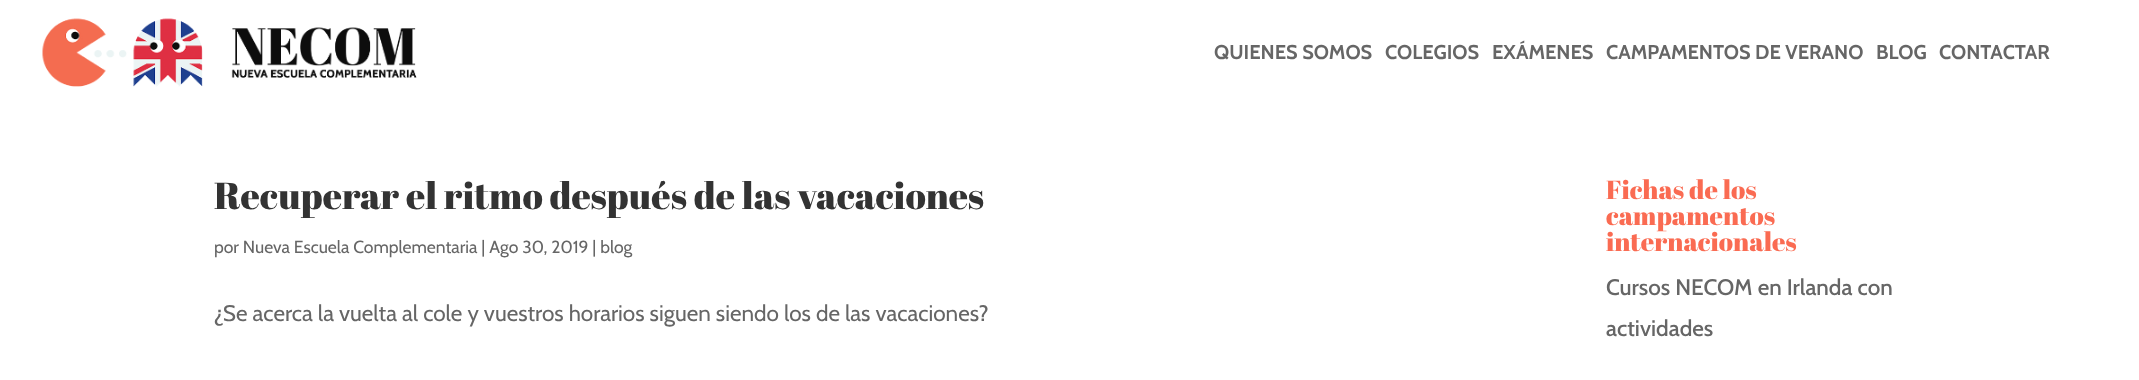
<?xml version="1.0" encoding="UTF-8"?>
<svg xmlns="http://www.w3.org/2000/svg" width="2139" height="380">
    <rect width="100%" height="100%" fill="#FFFFFF"/>
    <image x="42" y="18" width="375" height="69" href="img_01.png"/>
    <text x="1214" y="59" font-family="Cabin" font-size="20" font-weight="700" fill="#666666">QUIENES SOMOS</text>
    <text x="1385" y="59" font-family="Cabin" font-size="20" font-weight="700" fill="#666666">COLEGIOS</text>
    <text x="1492" y="59" font-family="Cabin" font-size="20" font-weight="700" fill="#666666">EXÁMENES</text>
    <text x="1606" y="59" font-family="Cabin" font-size="20" font-weight="700" fill="#666666">CAMPAMENTOS DE VERANO</text>
    <text x="1876" y="59" font-family="Cabin" font-size="20" font-weight="700" fill="#666666">BLOG</text>
    <text x="1939" y="59" font-family="Cabin" font-size="20" font-weight="700" fill="#666666">CONTACTAR</text>
    <text x="214" y="209" font-family="Abril Fatface" font-size="37.5" fill="#333333">Recuperar el ritmo después de las vacaciones</text>
    <text x="214" y="253" font-family="Cabin" font-size="17.5" fill="#666666">por Nueva Escuela Complementaria | Ago 30, 2019 | blog</text>
    <text x="214" y="321" font-family="Cabin" font-size="22.5" fill="#666666">¿Se acerca la vuelta al cole y vuestros horarios siguen siendo los de las vacaciones?</text>
    <text font-family="Abril Fatface" font-size="26.25" fill="#FA6B52">
        <tspan x="1606" y="199">Fichas de los</tspan>
        <tspan x="1606" y="225">campamentos</tspan>
        <tspan x="1606" y="251">internacionales</tspan>
    </text>
    <text font-family="Cabin" font-size="22.5" font-weight="500" fill="#666666">
        <tspan x="1606" y="295">Cursos NECOM en Irlanda con</tspan>
        <tspan x="1606" y="336">actividades</tspan>
    </text>
</svg>
